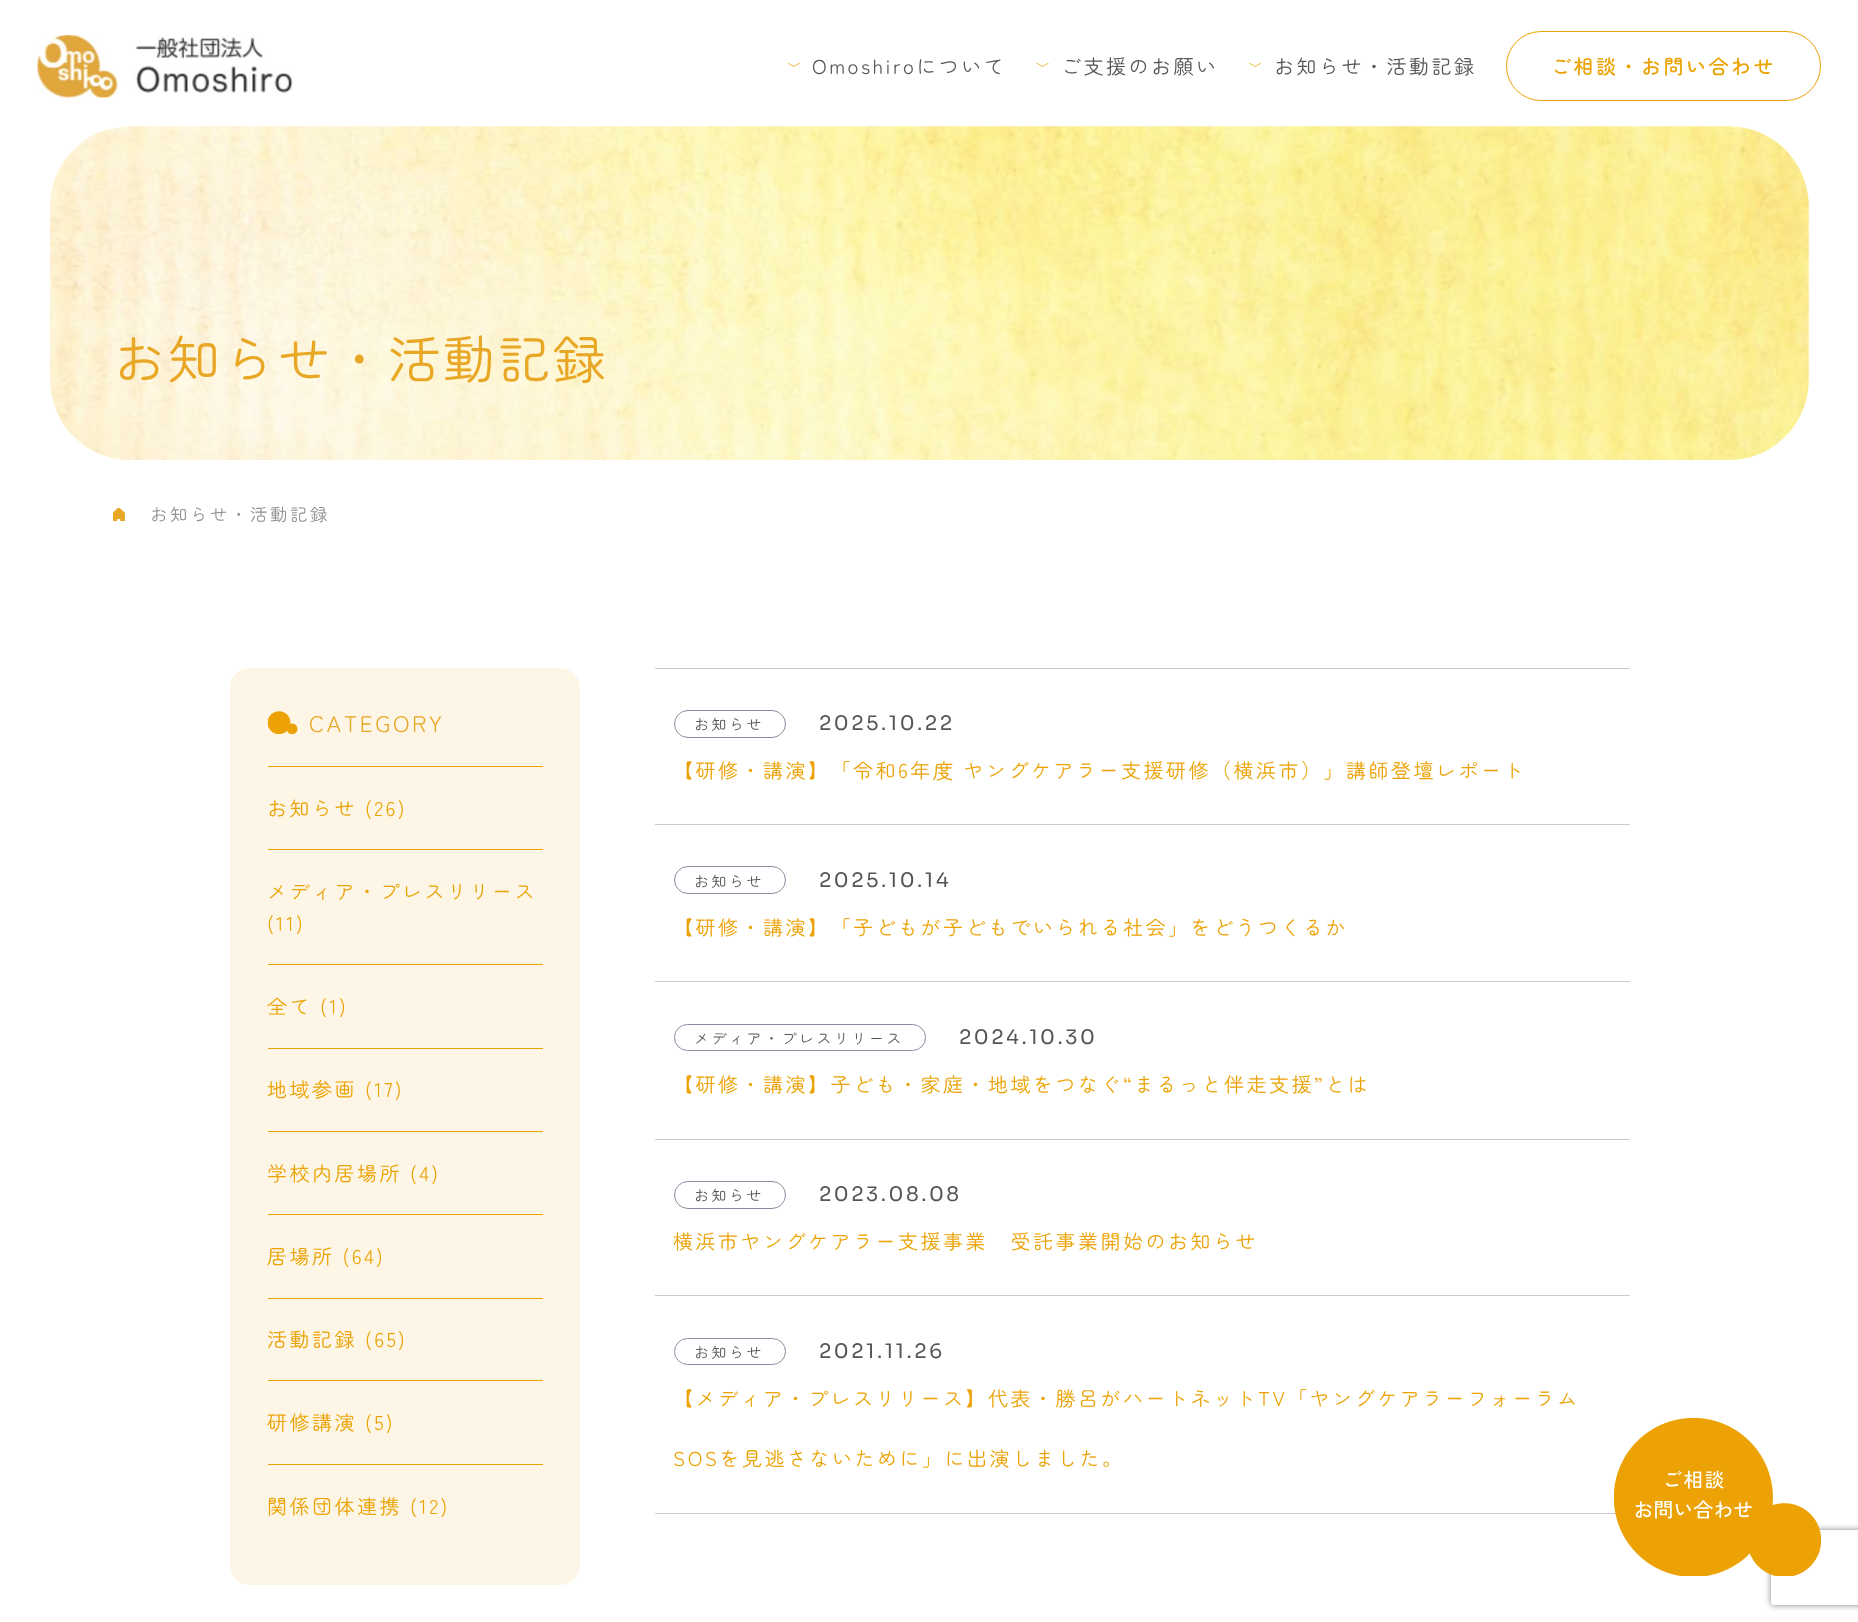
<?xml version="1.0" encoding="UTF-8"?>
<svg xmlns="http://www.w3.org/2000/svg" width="1858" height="1622">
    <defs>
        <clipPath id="clip1"><path d="M 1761 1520 H 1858 V 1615 H 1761 Z M 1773.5 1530 H 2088.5 C 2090 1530 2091 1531 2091 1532.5 V 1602.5 C 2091 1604 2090 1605 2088.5 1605 H 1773.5 C 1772 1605 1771 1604 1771 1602.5 V 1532.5 C 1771 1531 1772 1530 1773.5 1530 Z" clip-rule="evenodd"/></clipPath>
        <filter id="blur1" x="-50%" y="-200%" width="200%" height="500%"><feGaussianBlur stdDeviation="3"/></filter>
    </defs>
    <rect width="100%" height="100%" fill="#FFFFFF"/>
    <image x="37" y="35" width="256" height="63" href="img_01.png"/>
    <image x="788" y="63" width="12" height="4" href="img_02.png"/>
    <text x="812" y="74" font-family="Zen Maru Gothic" font-size="20" letter-spacing="2.5" fill="#555555">Omoshiroについて</text>
    <image x="1036" y="63" width="13" height="4" href="img_03.png"/>
    <text x="1061" y="74" font-family="Zen Maru Gothic" font-size="20" letter-spacing="2.5" fill="#555555">ご支援のお願い</text>
    <image x="1249" y="63" width="12" height="4" href="img_04.png"/>
    <text x="1274" y="74" font-family="Zen Maru Gothic" font-size="20" letter-spacing="2.5" fill="#555555">お知らせ・活動記録</text>
    <rect x="1506.5" y="31.5" width="314" height="69" rx="34.5" fill="none" stroke="#ECA204"/>
    <text x="1551" y="74" font-family="Zen Maru Gothic" font-size="20" font-weight="500" letter-spacing="2.5" fill="#ECA204">ご相談・お問い合わせ</text>
    <image x="50" y="126" width="1759" height="334" href="img_05.png"/>
    <text x="113" y="379" font-family="Zen Maru Gothic" font-size="52.5" letter-spacing="2.5" fill="#E9A726">お知らせ・活動記録</text>
    <image x="113" y="508" width="12" height="13" href="img_06.png"/>
    <text x="150" y="521" font-family="Zen Maru Gothic" font-size="17.5" letter-spacing="2.5" fill="#919191">お知らせ・活動記録</text>
    <rect x="230" y="668" width="350" height="917" rx="20" fill="#FDF6E6"/>
    <image x="268" y="711" width="30" height="23" href="img_07.png"/>
    <text x="309" y="732" font-family="Zen Maru Gothic" font-size="22.5" letter-spacing="2.5" fill="#E9A726">CATEGORY</text>
    <rect x="268" y="766" width="275" height="1" fill="#ECA202"/>
    <text x="267" y="816" font-family="Zen Maru Gothic" font-size="20" letter-spacing="2.5" fill="#ECA204">お知らせ (26)</text>
    <rect x="268" y="849" width="275" height="1" fill="#ECA202"/>
    <text font-family="Zen Maru Gothic" font-size="20" letter-spacing="2.5" fill="#ECA204">
        <tspan x="267" y="899">メディア・プレスリリース</tspan>
        <tspan x="267" y="931">(11)</tspan>
    </text>
    <rect x="268" y="964" width="275" height="1" fill="#ECA202"/>
    <text x="267" y="1014" font-family="Zen Maru Gothic" font-size="20" letter-spacing="2.5" fill="#ECA204">全て (1)</text>
    <rect x="268" y="1048" width="275" height="1" fill="#ECA202"/>
    <text x="267" y="1097" font-family="Zen Maru Gothic" font-size="20" letter-spacing="2.5" fill="#ECA204">地域参画 (17)</text>
    <rect x="268" y="1131" width="275" height="1" fill="#ECA202"/>
    <text x="267" y="1181" font-family="Zen Maru Gothic" font-size="20" letter-spacing="2.5" fill="#ECA204">学校内居場所 (4)</text>
    <rect x="268" y="1214" width="275" height="1" fill="#ECA202"/>
    <text x="267" y="1264" font-family="Zen Maru Gothic" font-size="20" letter-spacing="2.5" fill="#ECA204">居場所 (64)</text>
    <rect x="268" y="1298" width="275" height="1" fill="#ECA202"/>
    <text x="267" y="1347" font-family="Zen Maru Gothic" font-size="20" letter-spacing="2.5" fill="#ECA204">活動記録 (65)</text>
    <rect x="268" y="1380" width="275" height="1" fill="#ECA202"/>
    <text x="267" y="1430" font-family="Zen Maru Gothic" font-size="20" letter-spacing="2.5" fill="#ECA204">研修講演 (5)</text>
    <rect x="268" y="1464" width="275" height="1" fill="#ECA202"/>
    <text x="267" y="1514" font-family="Zen Maru Gothic" font-size="20" letter-spacing="2.5" fill="#ECA204">関係団体連携 (12)</text>
    <rect x="655" y="668" width="975" height="1" fill="#CCCCCC"/>
    <rect x="655" y="824" width="975" height="1" fill="#CCCCCC"/>
    <rect x="674.5" y="710.5" width="111" height="27" rx="13.5" fill="none" stroke="#8C8CA0"/>
    <text x="694" y="730" font-family="Zen Maru Gothic" font-size="15" letter-spacing="2.5" fill="#555555">お知らせ</text>
    <text x="819" y="730" font-family="Sora" font-size="20" letter-spacing="2.5" fill="#555555">2025.10.22</text>
    <text x="673" y="778" font-family="Zen Maru Gothic" font-size="20" letter-spacing="2.5" fill="#ECA204">【研修・講演】「令和6年度 ヤングケアラー支援研修（横浜市）」講師登壇レポート</text>
    <rect x="655" y="981" width="975" height="1" fill="#CCCCCC"/>
    <rect x="674.5" y="866.5" width="111" height="27" rx="13.5" fill="none" stroke="#8C8CA0"/>
    <text x="694" y="887" font-family="Zen Maru Gothic" font-size="15" letter-spacing="2.5" fill="#555555">お知らせ</text>
    <text x="819" y="887" font-family="Sora" font-size="20" letter-spacing="2.5" fill="#555555">2025.10.14</text>
    <text x="673" y="935" font-family="Zen Maru Gothic" font-size="20" letter-spacing="2.5" fill="#ECA204">【研修・講演】「子どもが子どもでいられる社会」をどうつくるか</text>
    <rect x="655" y="1139" width="975" height="1" fill="#CCCCCC"/>
    <rect x="674.5" y="1024.5" width="251" height="26" rx="13" fill="none" stroke="#8C8CA0"/>
    <text x="694" y="1044" font-family="Zen Maru Gothic" font-size="15" letter-spacing="2.5" fill="#555555">メディア・プレスリリース</text>
    <text x="959" y="1044" font-family="Sora" font-size="20" letter-spacing="2.5" fill="#555555">2024.10.30</text>
    <text x="673" y="1092" font-family="Zen Maru Gothic" font-size="20" letter-spacing="2.5" fill="#ECA204">【研修・講演】子ども・家庭・地域をつなぐ“まるっと伴走支援”とは</text>
    <rect x="655" y="1295" width="975" height="1" fill="#CCCCCC"/>
    <rect x="674.5" y="1181.5" width="111" height="27" rx="13.5" fill="none" stroke="#8C8CA0"/>
    <text x="694" y="1201" font-family="Zen Maru Gothic" font-size="15" letter-spacing="2.5" fill="#555555">お知らせ</text>
    <text x="819" y="1201" font-family="Sora" font-size="20" letter-spacing="2.5" fill="#555555">2023.08.08</text>
    <text x="673" y="1249" font-family="Zen Maru Gothic" font-size="20" letter-spacing="2.5" fill="#ECA204">横浜市ヤングケアラー支援事業　受託事業開始のお知らせ</text>
    <rect x="655" y="1513" width="961" height="1" fill="#CCCCCC"/>
    <rect x="674.5" y="1338.5" width="111" height="26" rx="13" fill="none" stroke="#8C8CA0"/>
    <text x="694" y="1358" font-family="Zen Maru Gothic" font-size="15" letter-spacing="2.5" fill="#555555">お知らせ</text>
    <text x="819" y="1358" font-family="Sora" font-size="20" letter-spacing="2.5" fill="#555555">2021.11.26</text>
    <text x="673" y="1406" font-family="Zen Maru Gothic" font-size="20" letter-spacing="2.5" fill="#ECA204">【メディア・プレスリリース】代表・勝呂がハートネットTV「ヤングケアラーフォーラム</text>
    <text x="673" y="1466" font-family="Zen Maru Gothic" font-size="20" letter-spacing="2.5" fill="#ECA204">SOSを見逃さないために」に出演しました。</text>
    <g clip-path="url(#clip1)">
        <rect x="1771" y="1530" width="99" height="75" rx="2.5" fill="#808080" filter="url(#blur1)"/>
    </g>
    <image x="1614" y="1418" width="207" height="158" href="img_08.png"/>
</svg>
